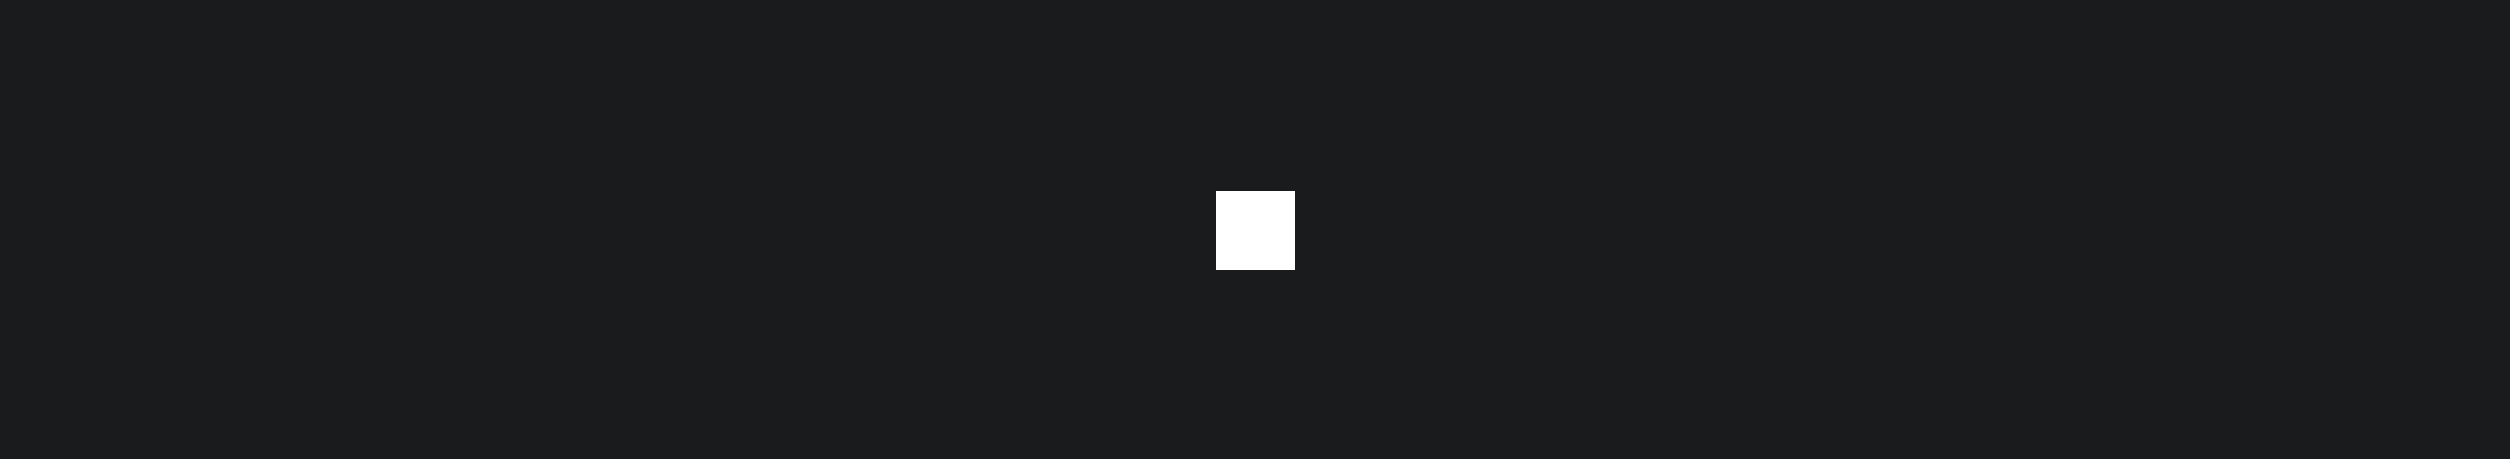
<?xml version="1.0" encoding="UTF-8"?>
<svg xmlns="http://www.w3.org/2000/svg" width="2510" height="459">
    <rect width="100%" height="100%" fill="#191B1D"/>
    <rect x="1216" y="191" width="79" height="79" fill="#FFFFFF"/>
</svg>
